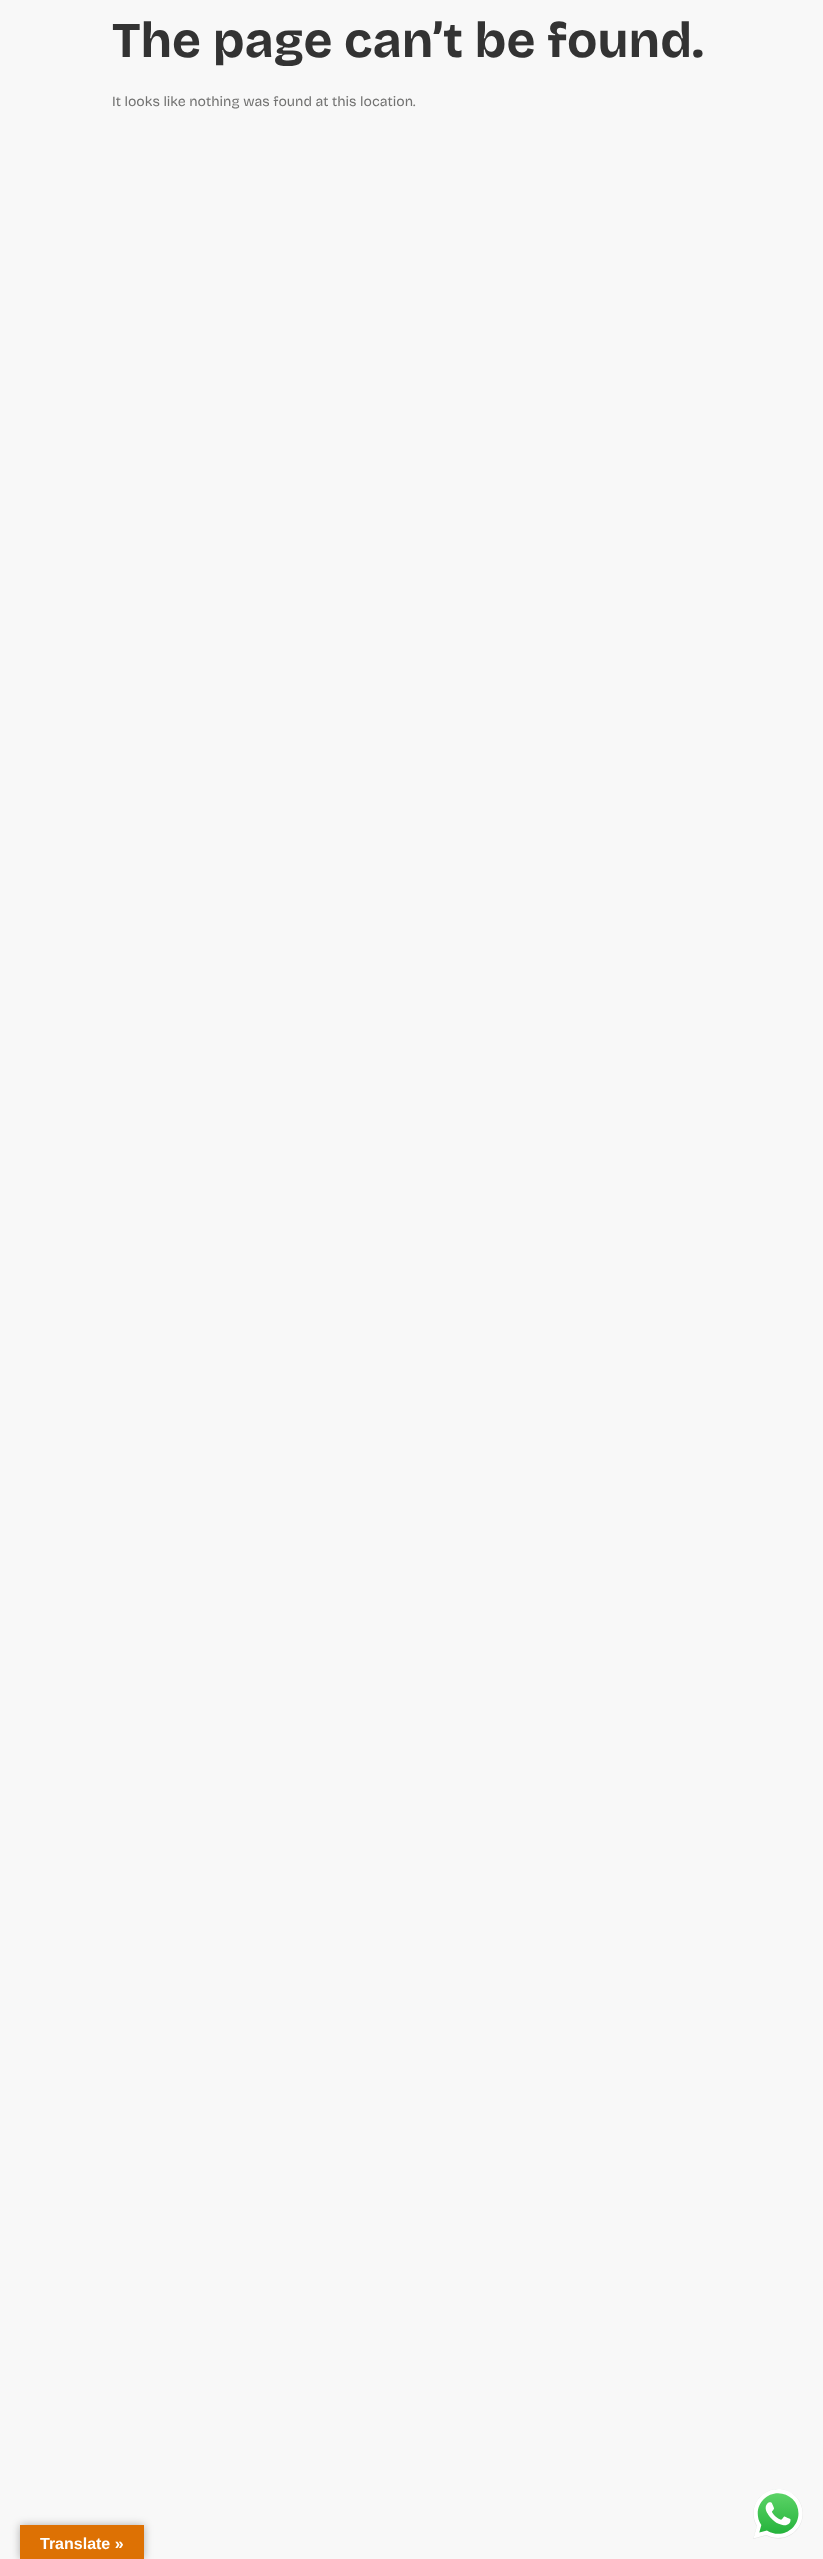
<?xml version="1.0" encoding="UTF-8"?>
<svg xmlns="http://www.w3.org/2000/svg" width="823" height="2559">
    <defs>
        <filter id="blur1" x="-50%" y="-200%" width="200%" height="500%"><feGaussianBlur stdDeviation="4.5"/></filter>
    </defs>
    <rect width="100%" height="100%" fill="#F8F8F8"/>
    <text x="112" y="57" font-family="Bricolage Grotesque" font-size="50" font-weight="700" fill="#333333">The page can’t be found.</text>
    <text x="112" y="106" font-family="Bricolage Grotesque" font-size="14" fill="#727271">It looks like nothing was found at this location.</text>
    <image x="753" y="2489" width="50" height="50" href="img_01.png"/>
    <rect x="20" y="2525" width="124" height="34" fill="#000000" fill-opacity="0.3" filter="url(#blur1)"/>
    <rect x="20" y="2525" width="124" height="34" fill="#DD7104"/>
    <text x="40" y="2549" font-family="Liberation Sans" font-size="16" font-weight="700" fill="#FFFFFF">Translate »</text>
</svg>
